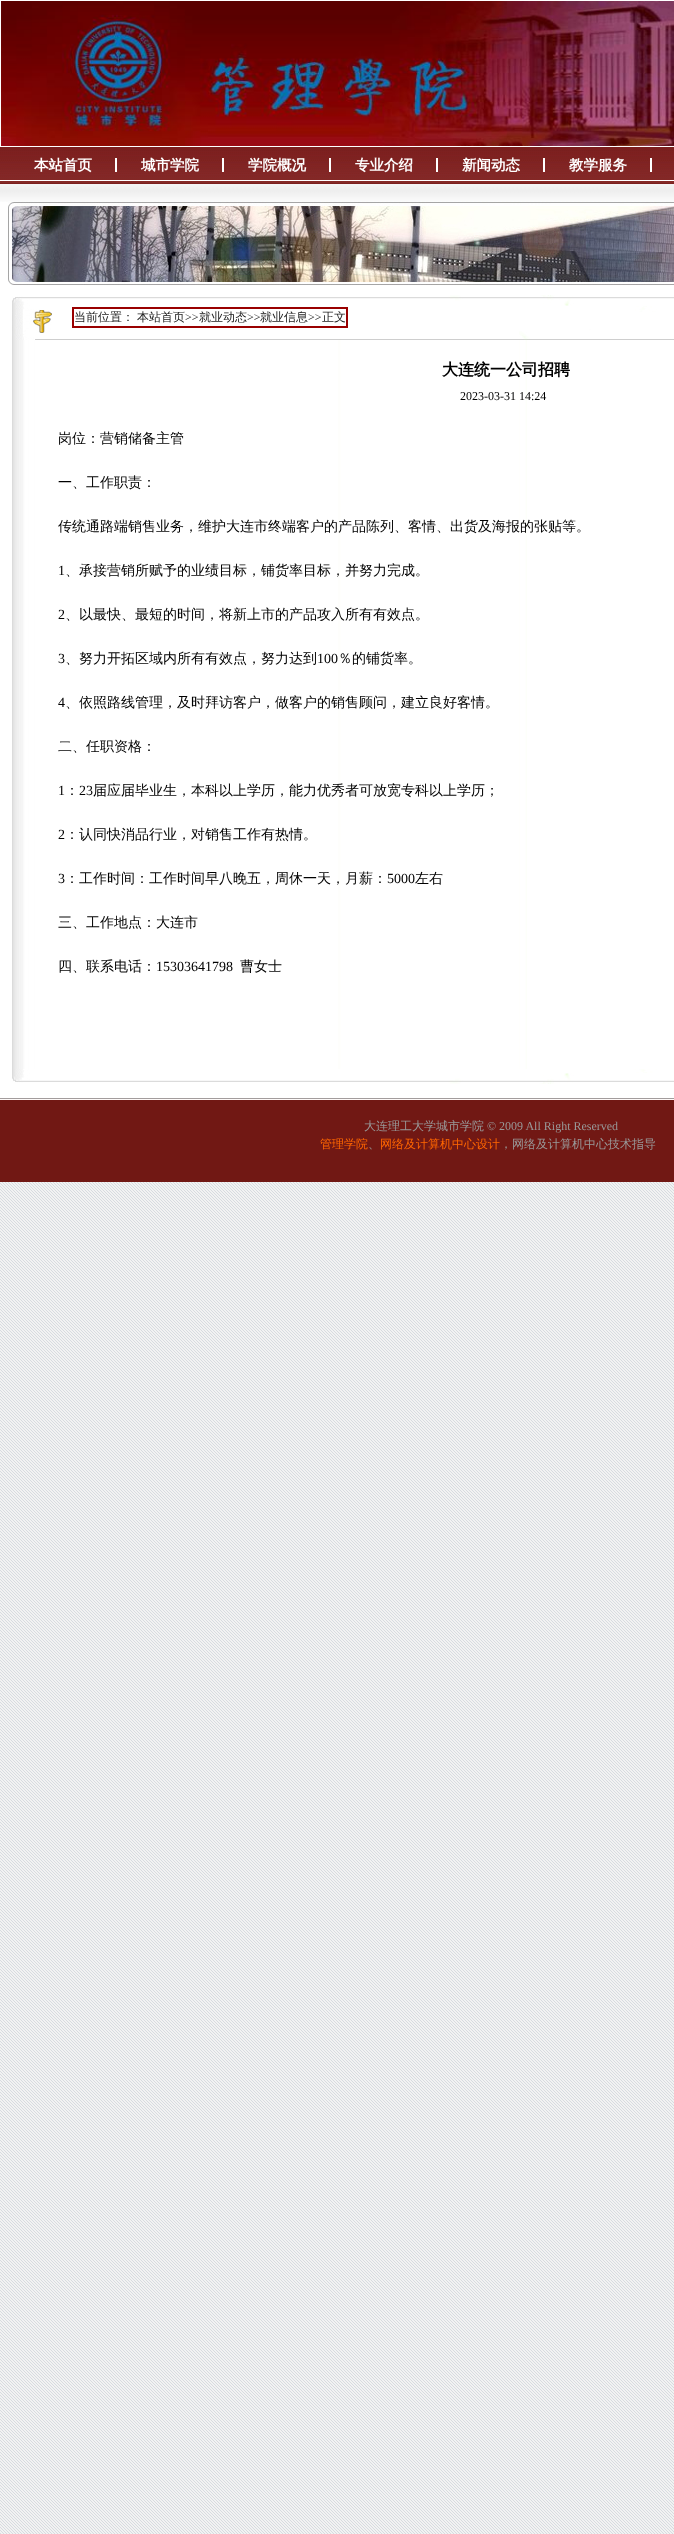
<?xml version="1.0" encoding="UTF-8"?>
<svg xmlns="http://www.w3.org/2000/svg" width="674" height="2534">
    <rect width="100%" height="100%" fill="#FFFFFF"/>
    <image x="0" y="1182" width="674" height="1352" href="img_01.png"/>
    <image x="1" y="1" width="673" height="145" href="img_02.png"/>
    <image x="0" y="147" width="674" height="37" href="img_03.png"/>
    <text x="34" y="170" font-family="WenQuanYi Zen Hei" font-size="14.5" font-weight="700" fill="#FFFFFF">本站首页</text>
    <rect x="115" y="158" width="2" height="14" fill="#FFFFFF"/>
    <text x="141" y="170" font-family="WenQuanYi Zen Hei" font-size="14.5" font-weight="700" fill="#FFFFFF">城市学院</text>
    <rect x="222" y="158" width="2" height="14" fill="#FFFFFF"/>
    <text x="248" y="170" font-family="WenQuanYi Zen Hei" font-size="14.5" font-weight="700" fill="#FFFFFF">学院概况</text>
    <rect x="329" y="158" width="2" height="14" fill="#FFFFFF"/>
    <text x="355" y="170" font-family="WenQuanYi Zen Hei" font-size="14.5" font-weight="700" fill="#FFFFFF">专业介绍</text>
    <rect x="436" y="158" width="2" height="14" fill="#FFFFFF"/>
    <text x="462" y="170" font-family="WenQuanYi Zen Hei" font-size="14.5" font-weight="700" fill="#FFFFFF">新闻动态</text>
    <rect x="543" y="158" width="2" height="14" fill="#FFFFFF"/>
    <text x="569" y="170" font-family="WenQuanYi Zen Hei" font-size="14.5" font-weight="700" fill="#FFFFFF">教学服务</text>
    <rect x="650" y="158" width="2" height="14" fill="#FFFFFF"/>
    <image x="0" y="184" width="674" height="18" href="img_04.png"/>
    <image x="8" y="202" width="666" height="83" href="img_05.png"/>
    <image x="12" y="295" width="662" height="45" href="img_06.png"/>
    <rect x="72" y="307" width="276" height="2" fill="#990000"/>
    <rect x="346" y="307" width="2" height="21" fill="#990000"/>
    <rect x="72" y="326" width="276" height="2" fill="#990000"/>
    <rect x="72" y="307" width="2" height="21" fill="#990000"/>
    <text x="74" y="321" font-family="WenQuanYi Zen Hei" font-size="12" font-weight="500" fill="#222222">当前位置：</text>
    <text x="137" y="321" font-family="WenQuanYi Zen Hei" font-size="12" font-weight="500" fill="#222222">本站首页</text>
    <text x="185" y="321" font-family="Liberation Serif" font-size="12" fill="#222222">&gt;&gt;</text>
    <text x="199" y="321" font-family="WenQuanYi Zen Hei" font-size="12" font-weight="500" fill="#222222">就业动态</text>
    <text x="247" y="321" font-family="Liberation Serif" font-size="12" fill="#222222">&gt;&gt;</text>
    <text x="260" y="321" font-family="WenQuanYi Zen Hei" font-size="12" font-weight="500" fill="#222222">就业信息</text>
    <text x="308" y="321" font-family="Liberation Serif" font-size="12" fill="#222222">&gt;&gt;</text>
    <text x="322" y="321" font-family="WenQuanYi Zen Hei" font-size="12" font-weight="500" fill="#222222">正文</text>
    <image x="12" y="340" width="515" height="729" href="img_07.png"/>
    <text x="442" y="375" font-family="WenQuanYi Zen Hei" font-size="16" font-weight="700" fill="#000000">大连统一公司招聘</text>
    <text x="460" y="400" font-family="Liberation Serif" font-size="12" fill="#000000">2023-03-31 14:24</text>
    <text x="58" y="443" font-family="WenQuanYi Zen Hei" font-size="14" font-weight="500" fill="#000000">岗位：营销储备主管</text>
    <text x="58" y="487" font-family="WenQuanYi Zen Hei" font-size="14" font-weight="500" fill="#000000">一、工作职责：</text>
    <text x="58" y="531" font-family="WenQuanYi Zen Hei" font-size="14" font-weight="500" fill="#000000">传统通路端销售业务，维护大连市终端客户的产品陈列、客情、出货及海报的张贴等。</text>
    <text x="58" y="575" font-family="Liberation Serif" font-size="14" fill="#000000">1</text>
    <text x="65" y="575" font-family="WenQuanYi Zen Hei" font-size="14" font-weight="500" fill="#000000">、承接营销所赋予的业绩目标，铺货率目标，并努力完成。</text>
    <text x="58" y="619" font-family="Liberation Serif" font-size="14" fill="#000000">2</text>
    <text x="65" y="619" font-family="WenQuanYi Zen Hei" font-size="14" font-weight="500" fill="#000000">、以最快、最短的时间，将新上市的产品攻入所有有效点。</text>
    <text x="58" y="663" font-family="Liberation Serif" font-size="14" fill="#000000">3</text>
    <text x="65" y="663" font-family="WenQuanYi Zen Hei" font-size="14" font-weight="500" fill="#000000">、努力开拓区域内所有有效点，努力达到</text>
    <text x="317" y="663" font-family="Liberation Serif" font-size="14" fill="#000000">100</text>
    <text x="338" y="663" font-family="WenQuanYi Zen Hei" font-size="14" font-weight="500" fill="#000000">％的铺货率。</text>
    <text x="58" y="707" font-family="Liberation Serif" font-size="14" fill="#000000">4</text>
    <text x="65" y="707" font-family="WenQuanYi Zen Hei" font-size="14" font-weight="500" fill="#000000">、依照路线管理，及时拜访客户，做客户的销售顾问，建立良好客情。</text>
    <text x="58" y="751" font-family="WenQuanYi Zen Hei" font-size="14" font-weight="500" fill="#000000">二、任职资格：</text>
    <text x="58" y="795" font-family="Liberation Serif" font-size="14" fill="#000000">1</text>
    <text x="65" y="795" font-family="WenQuanYi Zen Hei" font-size="14" font-weight="500" fill="#000000">：</text>
    <text x="79" y="795" font-family="Liberation Serif" font-size="14" fill="#000000">23</text>
    <text x="93" y="795" font-family="WenQuanYi Zen Hei" font-size="14" font-weight="500" fill="#000000">届应届毕业生，本科以上学历，能力优秀者可放宽专科以上学历；</text>
    <text x="58" y="839" font-family="Liberation Serif" font-size="14" fill="#000000">2</text>
    <text x="65" y="839" font-family="WenQuanYi Zen Hei" font-size="14" font-weight="500" fill="#000000">：认同快消品行业，对销售工作有热情。</text>
    <text x="58" y="883" font-family="Liberation Serif" font-size="14" fill="#000000">3</text>
    <text x="65" y="883" font-family="WenQuanYi Zen Hei" font-size="14" font-weight="500" fill="#000000">：工作时间：工作时间早八晚五，周休一天，月薪：</text>
    <text x="387" y="883" font-family="Liberation Serif" font-size="14" fill="#000000">5000</text>
    <text x="415" y="883" font-family="WenQuanYi Zen Hei" font-size="14" font-weight="500" fill="#000000">左右</text>
    <text x="58" y="927" font-family="WenQuanYi Zen Hei" font-size="14" font-weight="500" fill="#000000">三、工作地点：大连市</text>
    <text x="58" y="971" font-family="WenQuanYi Zen Hei" font-size="14" font-weight="500" fill="#000000">四、联系电话：</text>
    <text x="156" y="971" font-family="Liberation Serif" font-size="14" fill="#000000">15303641798</text>
    <text x="240" y="971" font-family="WenQuanYi Zen Hei" font-size="14" font-weight="500" fill="#000000">曹女士</text>
    <image x="12" y="1069" width="662" height="15" href="img_08.png"/>
    <image x="0" y="1098" width="674" height="84" href="img_09.png"/>
    <text x="364" y="1130" font-family="WenQuanYi Zen Hei" font-size="12" font-weight="500" fill="#999999">大连理工大学城市学院</text>
    <text x="487" y="1130" font-family="Liberation Serif" font-size="12" fill="#999999">© 2009 All Right Reserved</text>
    <text x="320" y="1148" font-family="WenQuanYi Zen Hei" font-size="12" font-weight="500" fill="#FF6600">管理学院</text>
    <text x="368" y="1148" font-family="WenQuanYi Zen Hei" font-size="12" font-weight="500" fill="#999999">、</text>
    <text x="380" y="1148" font-family="WenQuanYi Zen Hei" font-size="12" font-weight="500" fill="#FF6600">网络及计算机中心设计</text>
    <text x="500" y="1148" font-family="WenQuanYi Zen Hei" font-size="12" font-weight="500" fill="#999999">，网络及计算机中心技术指导</text>
</svg>
